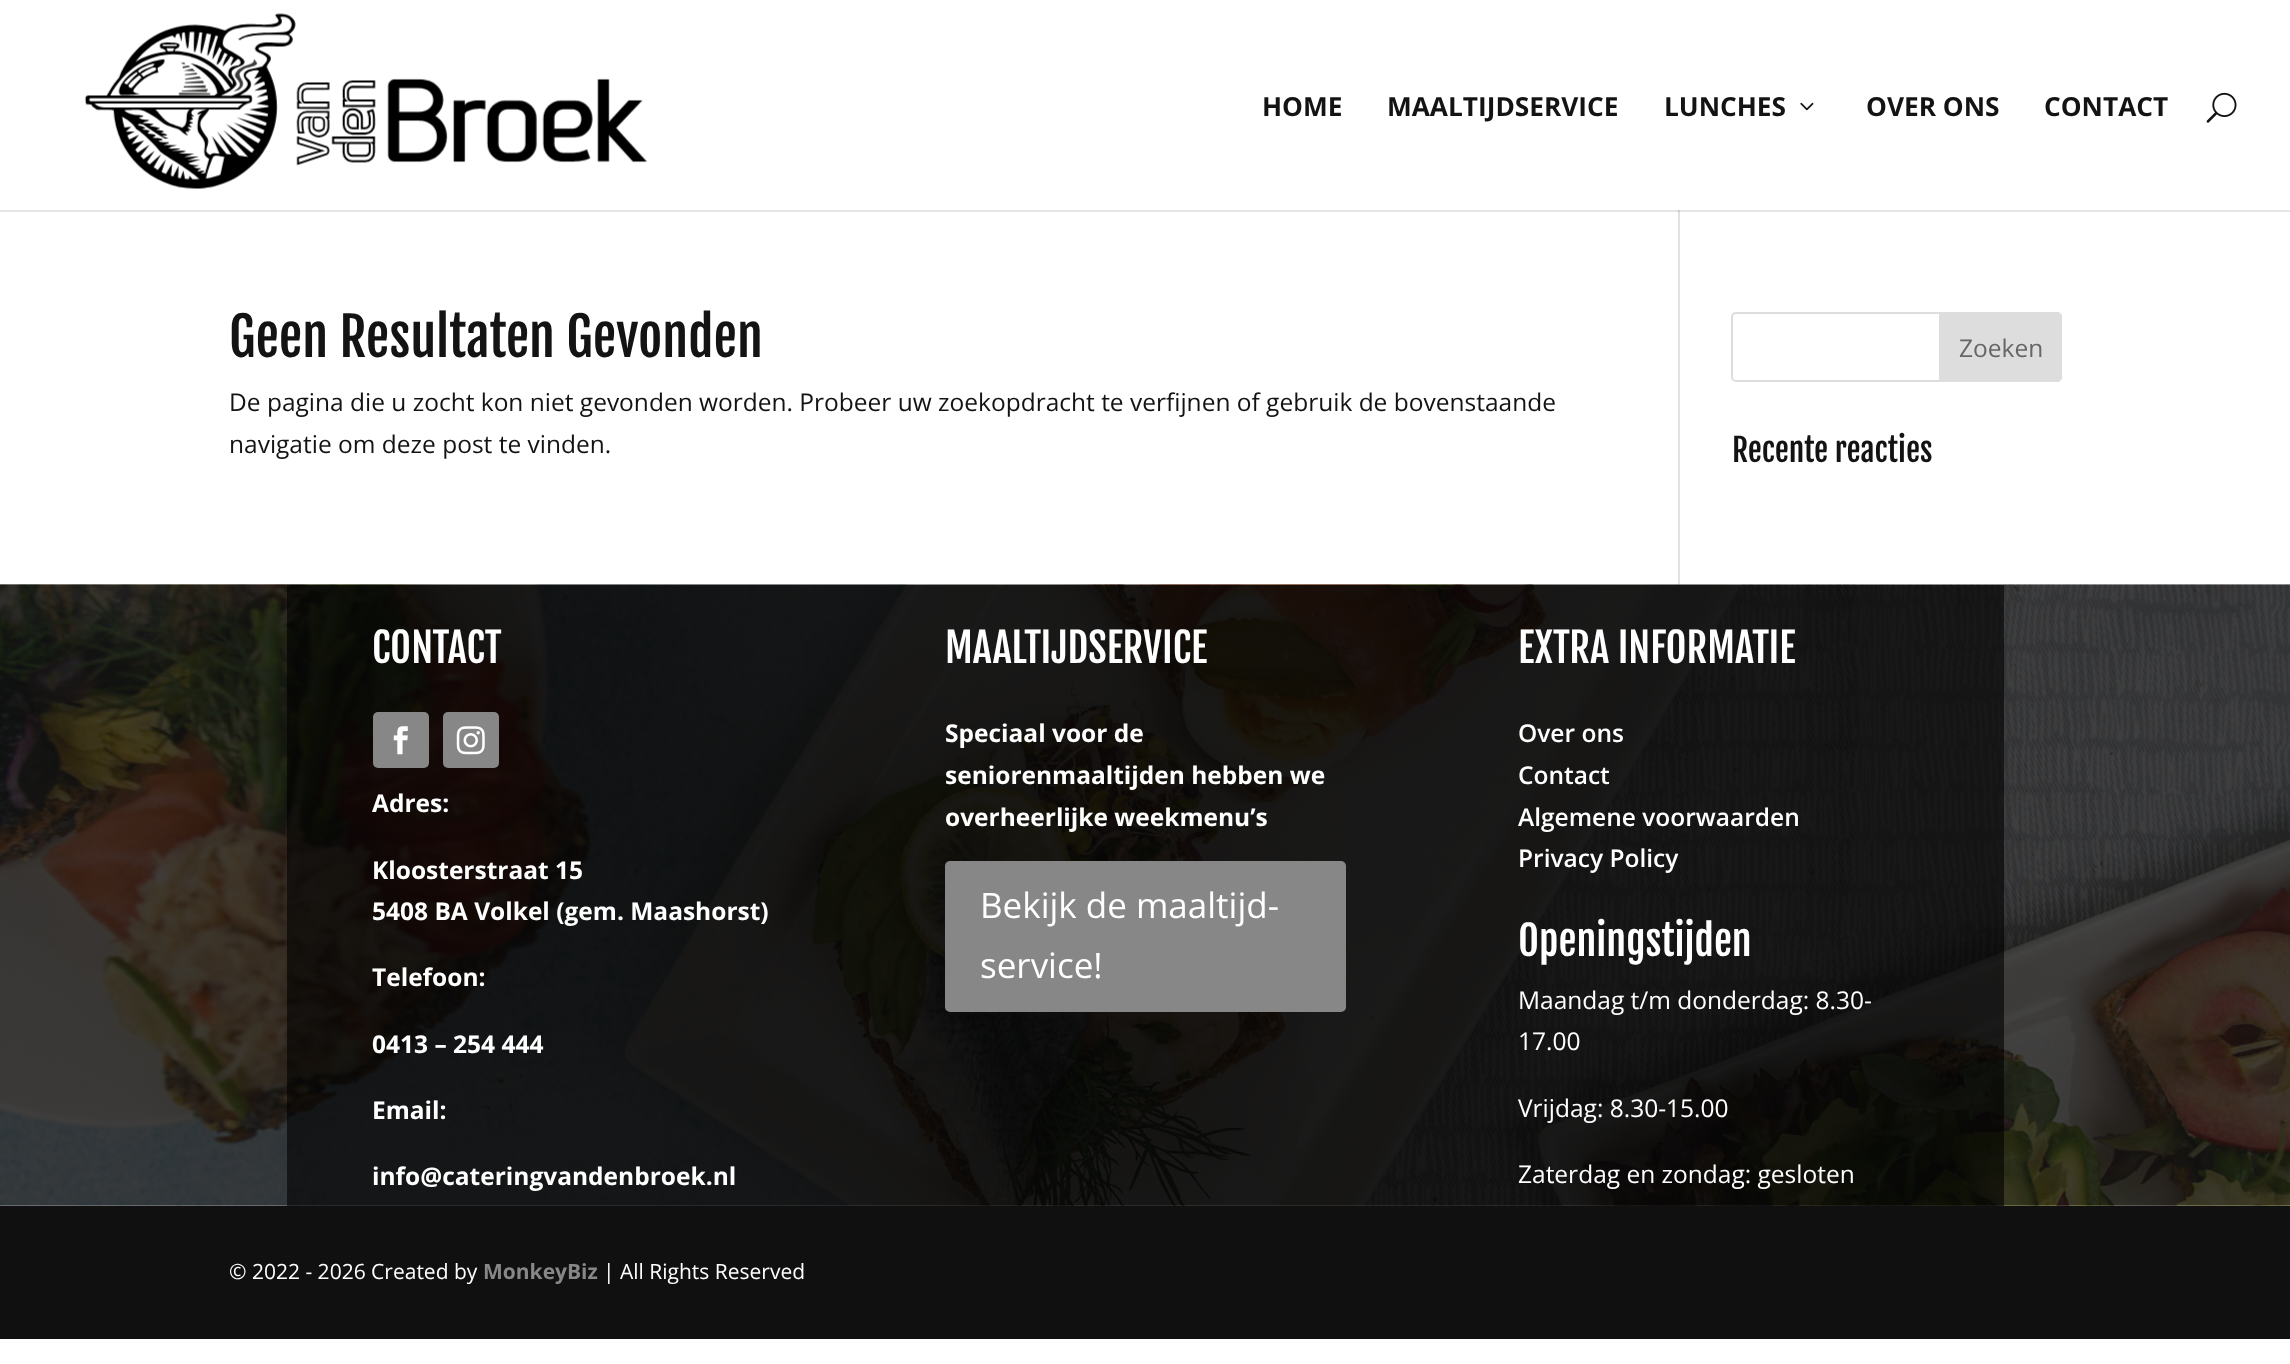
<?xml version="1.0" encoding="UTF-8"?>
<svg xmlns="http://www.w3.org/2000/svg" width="2290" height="1364">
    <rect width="100%" height="100%" fill="#FFFFFF"/>
    <rect x="1678" y="210" width="2" height="375" fill="#E2E2E2"/>
    <path d="M 0 210 V 212 H 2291 V 2 V 210 Z" fill="#000000" fill-opacity="0.1"/>
    <image x="84" y="13" width="563" height="176" href="img_01.png"/>
    <text x="1262" y="116" font-family="Open Sans" font-size="26.25" font-weight="700" fill="#131313">HOME</text>
    <text x="1387" y="116" font-family="Open Sans" font-size="26.25" font-weight="700" fill="#131313">MAALTIJDSERVICE</text>
    <text x="1664" y="116" font-family="Open Sans" font-size="26.25" font-weight="700" fill="#131313">LUNCHES</text>
    <image x="1800" y="102" width="14" height="9" href="img_02.png"/>
    <text x="1866" y="116" font-family="Open Sans" font-size="26.25" font-weight="700" fill="#131313">OVER ONS</text>
    <text x="2044" y="116" font-family="Open Sans" font-size="26.25" font-weight="700" fill="#131313">CONTACT</text>
    <image x="2206" y="92" width="31" height="31" href="img_03.png"/>
    <text x="229" y="357" font-family="Fjalla One" font-size="52.5" fill="#131313">Geen Resultaten Gevonden</text>
    <text font-family="Open Sans" font-size="24.5" fill="#131313">
        <tspan x="229" y="411">De pagina die u zocht kon niet gevonden worden. Probeer uw zoekopdracht te verfijnen of gebruik de bovenstaande</tspan>
        <tspan x="229" y="453">navigatie om deze post te vinden.</tspan>
    </text>
    <rect x="1732" y="313" width="329" height="68" rx="4" fill="none" stroke="#DDDDDD" stroke-width="2"/>
    <path d="M 1940 313 H 2057 C 2059 313 2061 315 2061 317 V 377 C 2061 379 2059 381 2057 381 H 1940 Z" fill="#DDDDDD" stroke="#DDDDDD" stroke-width="2"/>
    <text x="1959" y="357" font-family="Open Sans" font-size="24.5" fill="#666666">Zoeken</text>
    <text x="1732" y="462" font-family="Fjalla One" font-size="31.5" fill="#131313">Recente reacties</text>
    <image x="0" y="584" width="2290" height="622" href="img_04.png"/>
    <rect x="287" y="585" width="572" height="621" fill="#000000" fill-opacity="0.6"/>
    <text x="372" y="663" font-family="Fjalla One" font-size="40.25" fill="#FFFFFF">CONTACT</text>
    <rect x="373" y="712" width="56" height="56" rx="5" fill="#878787"/>
    <image x="393" y="726" width="15" height="29" href="img_05.png"/>
    <rect x="443" y="712" width="56" height="56" rx="5" fill="#878787"/>
    <image x="456" y="726" width="29" height="29" href="img_06.png"/>
    <text x="372" y="812" font-family="Open Sans" font-size="24.5" font-weight="700" fill="#FFFFFF">Adres:</text>
    <text font-family="Open Sans" font-size="24.5" font-weight="700" fill="#FFFFFF">
        <tspan x="372" y="879">Kloosterstraat 15</tspan>
        <tspan x="372" y="920">5408 BA Volkel (gem. Maashorst)</tspan>
    </text>
    <text x="372" y="986" font-family="Open Sans" font-size="24.5" font-weight="700" fill="#FFFFFF">Telefoon:</text>
    <text x="372" y="1053" font-family="Open Sans" font-size="24.5" font-weight="700" fill="#FFFFFF">0413 – 254 444</text>
    <text x="372" y="1119" font-family="Open Sans" font-size="24.5" font-weight="700" fill="#FFFFFF">Email:</text>
    <text x="372" y="1185" font-family="Open Sans" font-size="24.5" font-weight="700" fill="#FFFFFF">info@cateringvandenbroek.nl</text>
    <rect x="859" y="585" width="573" height="621" fill="#000000" fill-opacity="0.6"/>
    <text x="945" y="663" font-family="Fjalla One" font-size="40.25" fill="#FFFFFF">MAALTIJDSERVICE</text>
    <text font-family="Open Sans" font-size="24.5" font-weight="700" fill="#FFFFFF">
        <tspan x="945" y="742">Speciaal voor de</tspan>
        <tspan x="945" y="784">seniorenmaaltijden hebben we</tspan>
        <tspan x="945" y="826">overheerlijke weekmenu’s</tspan>
    </text>
    <rect x="945" y="861" width="401" height="151" rx="5" fill="#878787"/>
    <text font-family="Open Sans" font-size="35" fill="#FFFFFF">
        <tspan x="980" y="918">Bekijk de maaltijd-</tspan>
        <tspan x="980" y="978">service!</tspan>
    </text>
    <rect x="1432" y="585" width="572" height="621" fill="#000000" fill-opacity="0.6"/>
    <text x="1518" y="663" font-family="Fjalla One" font-size="40.25" fill="#FFFFFF">EXTRA INFORMATIE</text>
    <text font-family="Open Sans" font-size="24.5" font-weight="600" fill="#FFFFFF">
        <tspan x="1518" y="742">Over ons</tspan>
        <tspan x="1518" y="784">Contact</tspan>
        <tspan x="1518" y="826">Algemene voorwaarden</tspan>
        <tspan x="1518" y="867">Privacy Policy</tspan>
    </text>
    <text x="1518" y="956" font-family="Fjalla One" font-size="40.25" fill="#FFFFFF">Openingstijden</text>
    <text font-family="Open Sans" font-size="24.5" fill="#FFFFFF">
        <tspan x="1518" y="1009">Maandag t/m donderdag: 8.30-</tspan>
        <tspan x="1518" y="1050">17.00</tspan>
    </text>
    <text x="1518" y="1117" font-family="Open Sans" font-size="24.5" fill="#FFFFFF">Vrijdag: 8.30-15.00</text>
    <text x="1518" y="1183" font-family="Open Sans" font-size="24.5" fill="#FFFFFF">Zaterdag en zondag: gesloten</text>
    <rect x="0" y="1206" width="2290" height="133" fill="#101010"/>
    <text x="229" y="1279" font-family="Open Sans" font-size="21" fill="#FFFFFF">© 2022 - 2026 Created by</text>
    <text x="483" y="1279" font-family="Open Sans" font-size="21" font-weight="700" fill="#878787">MonkeyBiz</text>
    <text x="603" y="1279" font-family="Open Sans" font-size="21" fill="#FFFFFF">| All Rights Reserved</text>
</svg>
